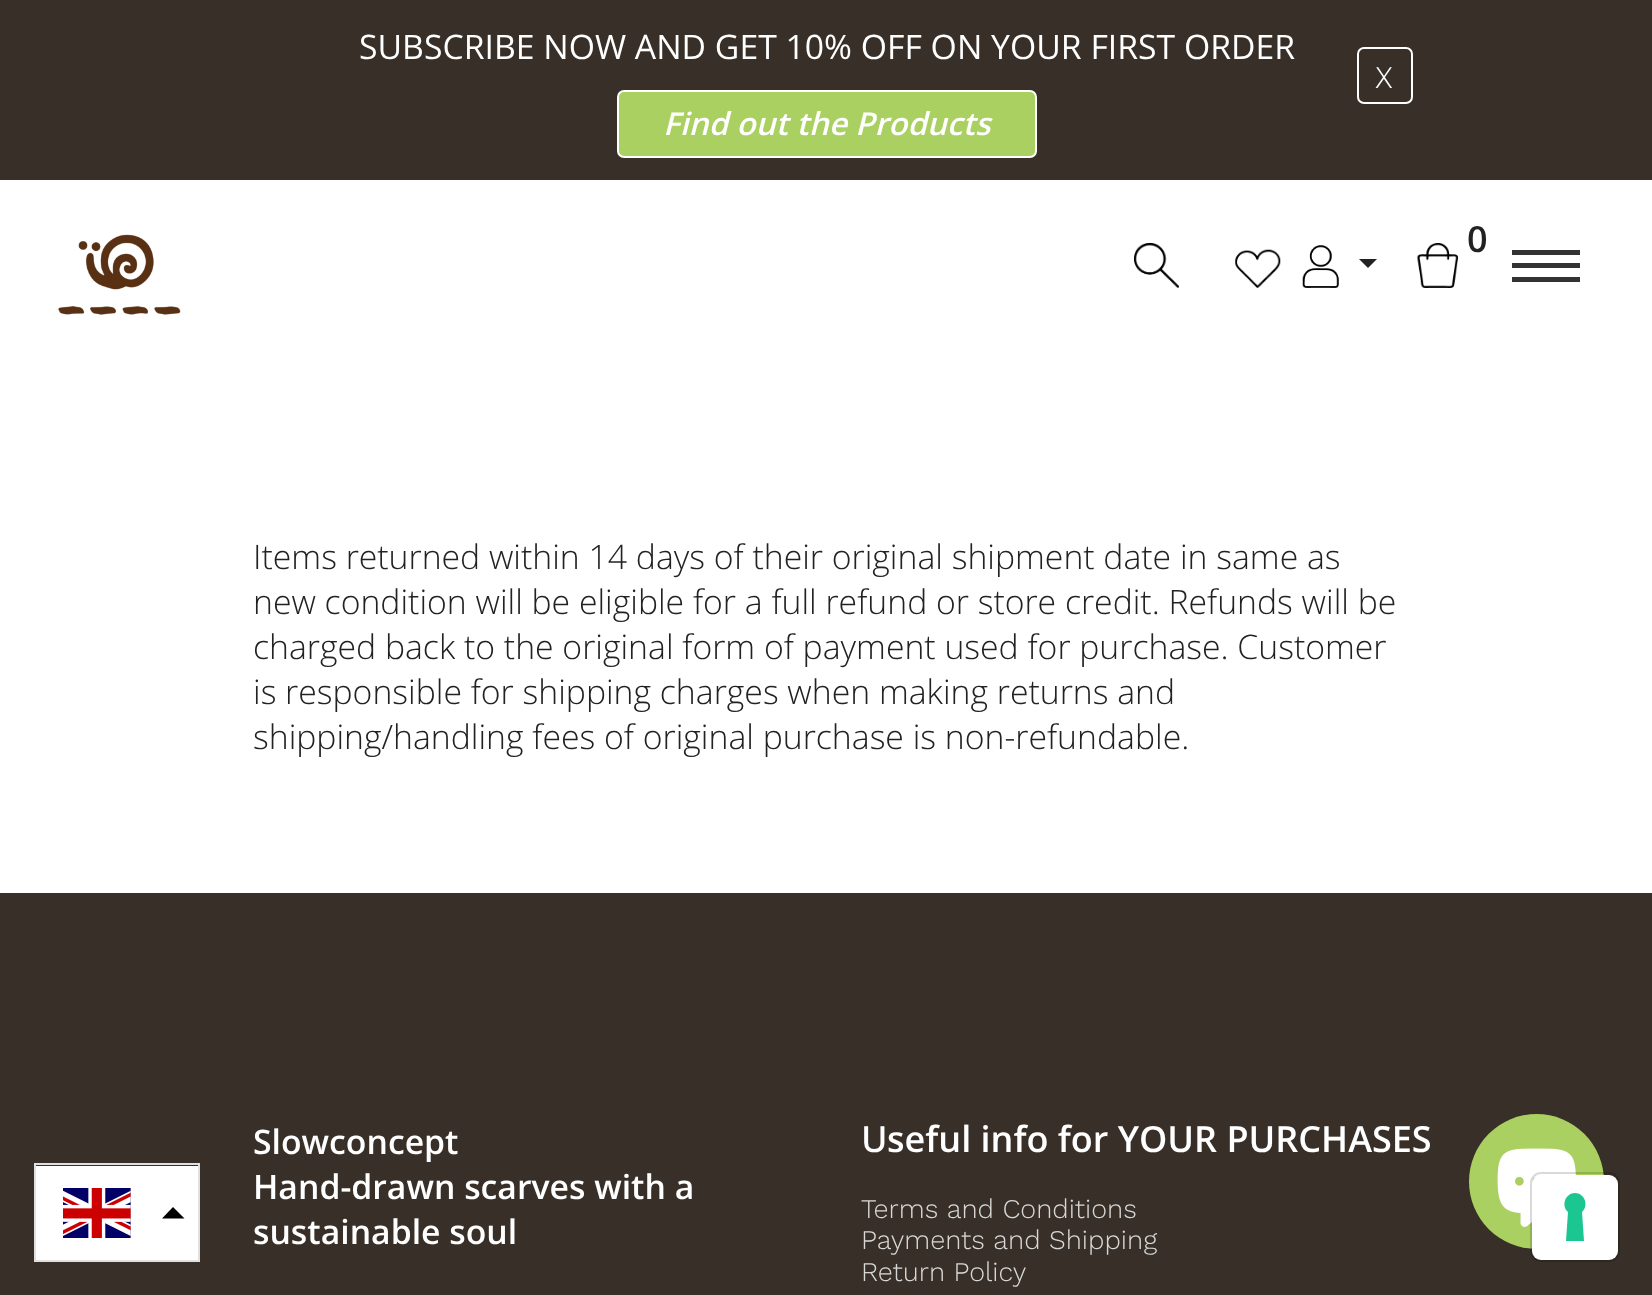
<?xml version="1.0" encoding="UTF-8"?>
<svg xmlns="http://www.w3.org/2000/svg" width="1652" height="1295">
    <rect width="100%" height="100%" fill="#FFFFFF"/>
    <rect x="0" y="0" width="1652" height="180" fill="#372F28"/>
    <text x="359" y="59" font-family="Open Sans" font-size="33.75" fill="#FFFFFF">SUBSCRIBE NOW AND GET 10% OFF ON YOUR FIRST ORDER</text>
    <rect x="618" y="91" width="418" height="66" rx="6" fill="#A9D060" stroke="#FFFFFF" stroke-width="2"/>
    <text x="663" y="135" font-family="Open Sans" font-size="31.5" font-weight="600" font-style="italic" fill="#FFFFFF">Find out the Products</text>
    <rect x="1358" y="48" width="54" height="55" rx="6" fill="none" stroke="#FFFFFF" stroke-width="2"/>
    <text x="1375" y="88" font-family="Work Sans" font-size="31.5" font-weight="300" fill="#FFFFFF">X</text>
    <rect x="0" y="893" width="1652" height="402" fill="#372F28"/>
    <rect x="35" y="1164" width="164" height="97" fill="none" stroke="#E0E0E0" stroke-width="2"/>
    <rect x="36" y="1166" width="162" height="94" fill="#FFFFFF"/>
    <image x="63" y="1188" width="68" height="50" href="img_01.png"/>
    <path d="M 162 1218.5 L 173 1207 L 184.5 1218.5 Z" fill="#000000" fill-rule="evenodd"/>
    <image x="58" y="234" width="123" height="81" href="img_02.png"/>
    <text x="1467" y="252" font-family="Open Sans" font-size="36" font-weight="600" letter-spacing="1" fill="#222222">0</text>
    <image x="1417" y="243" width="41" height="45" href="img_03.png"/>
    <image x="1134" y="243" width="45" height="45" href="img_04.png"/>
    <image x="1235" y="249" width="46" height="39" href="img_05.png"/>
    <image x="1302" y="245" width="37" height="43" href="img_06.png"/>
    <path d="M 1359 259 H 1377 L 1368 268 Z" fill="#222222"/>
    <rect x="1512" y="263" width="68" height="5" fill="#333333"/>
    <rect x="1512" y="250" width="68" height="5" fill="#333333"/>
    <rect x="1512" y="277" width="68" height="5" fill="#333333"/>
    <text font-family="Open Sans" font-size="33.75" font-weight="300" fill="#222222">
        <tspan x="253" y="569">Items returned within 14 days of their original shipment date in same as</tspan>
        <tspan x="253" y="614">new condition will be eligible for a full refund or store credit. Refunds will be</tspan>
        <tspan x="253" y="659">charged back to the original form of payment used for purchase. Customer</tspan>
        <tspan x="253" y="704">is responsible for shipping charges when making returns and</tspan>
        <tspan x="253" y="749">shipping/handling fees of original purchase is non-refundable.</tspan>
    </text>
    <text font-family="Open Sans" font-size="33.75" font-weight="600" fill="#FFFFFF">
        <tspan x="253" y="1154">Slowconcept</tspan>
        <tspan x="253" y="1199">Hand-drawn scarves with a</tspan>
        <tspan x="253" y="1244">sustainable soul</tspan>
    </text>
    <text x="861" y="1152" font-family="Noto Sans" font-size="36" font-weight="500" fill="#FFFFFF">U</text>
    <text x="887" y="1152" font-family="Open Sans" font-size="36" font-weight="600" fill="#FFFFFF">seful info for YOUR PURCHASES</text>
    <text font-family="Work Sans" font-size="27" font-weight="300" fill="#D8D8D8">
        <tspan x="861" y="1218">Terms and Conditions</tspan>
        <tspan x="861" y="1249">Payments and Shipping</tspan>
        <tspan x="861" y="1281">Return Policy</tspan>
    </text>
    <circle cx="1536.5" cy="1181.5" r="67.5" fill="#A9D060"/>
    <image x="1497" y="1148" width="79" height="79" href="img_07.png"/>
    <rect x="1531" y="1173" width="88" height="88" rx="10" fill="none" stroke="#000000" stroke-opacity="0.15" stroke-width="2"/>
    <rect x="1532" y="1175" width="86" height="85" rx="9" fill="#FFFFFF"/>
    <path d="M 1575 1193 C 1585 1193 1589 1206 1582 1212 L 1584 1241 H 1566 L 1568 1212 C 1561 1206 1565 1193 1575 1193 Z" fill="#1CC691" fill-rule="evenodd"/>
</svg>
